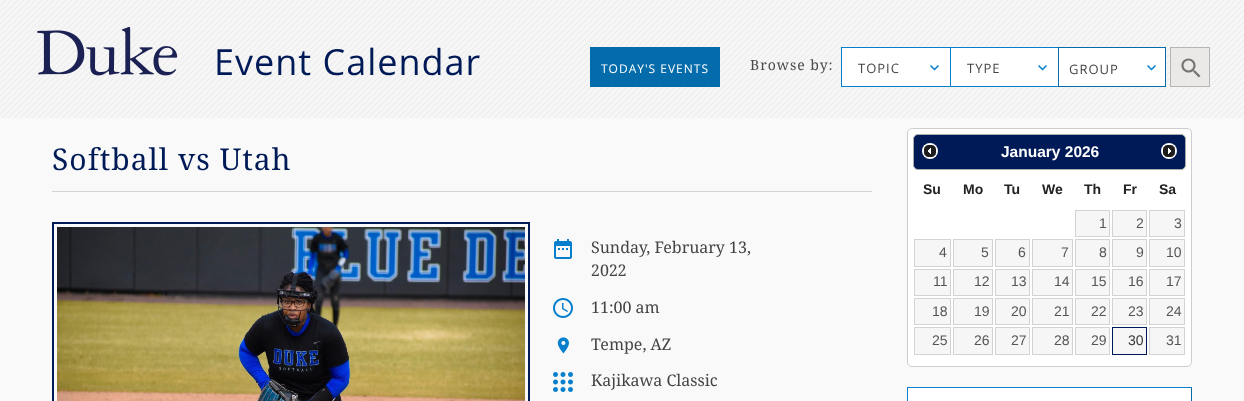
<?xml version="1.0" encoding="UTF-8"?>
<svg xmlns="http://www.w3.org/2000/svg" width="1244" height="401">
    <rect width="100%" height="100%" fill="#FFFFFF"/>
    <image x="0" y="0" width="1244" height="118" href="img_01.png"/>
    <image x="37" y="27" width="141" height="49" href="img_02.png"/>
    <text x="214" y="75" font-family="Open Sans" font-size="36" letter-spacing="1" fill="#001A57">Event Calendar</text>
    <rect x="590" y="47" width="130" height="40" fill="#056CAC"/>
    <text x="601" y="73" font-family="Open Sans" font-size="12" letter-spacing="1" fill="#FFFFFF">TODAY'S EVENTS</text>
    <text x="750" y="70" font-family="Droid Serif" font-size="14" letter-spacing="1" fill="#4A4A4A">Browse by:</text>
    <rect x="842" y="48" width="108" height="38" fill="#FFFFFF"/>
    <rect x="841" y="47" width="217" height="1" fill="#0680CD"/>
    <rect x="841" y="86" width="217" height="1" fill="#0680CD"/>
    <rect x="841" y="47" width="1" height="40" fill="#0680CD"/>
    <text x="858" y="73" font-family="Open Sans" font-size="13" letter-spacing="1" fill="#444444">TOPIC</text>
    <image x="930" y="65" width="9" height="6" href="img_03.png"/>
    <rect x="951" y="48" width="107" height="38" fill="#FFFFFF"/>
    <rect x="950" y="47" width="1" height="40" fill="#0680CD"/>
    <text x="967" y="73" font-family="Open Sans" font-size="13" letter-spacing="1" fill="#444444">TYPE</text>
    <image x="1038" y="65" width="9" height="6" href="img_03.png"/>
    <rect x="1058.5" y="47.5" width="107" height="39" fill="#FFFFFF" stroke="#056CAC"/>
    <image x="1147" y="65" width="9" height="6" href="img_03.png"/>
    <text x="1069" y="74" font-family="Open Sans" font-size="13" letter-spacing="1" fill="#444444">GROUP</text>
    <image x="1170" y="47" width="40" height="40" href="img_04.png"/>
    <rect x="0" y="118" width="1244" height="283" fill="#F9F9F9"/>
    <text x="52" y="170" font-family="Droid Serif" font-size="30" letter-spacing="1" fill="#001A57">Softball vs Utah</text>
    <rect x="52" y="191" width="820" height="1" fill="#D5D3D3"/>
    <rect x="53" y="223" width="476" height="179" fill="none" stroke="#001A57" stroke-width="2"/>
    <image x="57" y="227" width="468" height="174" href="img_05.png"/>
    <image x="554" y="239" width="18" height="20" href="img_06.png"/>
    <text font-family="Droid Serif" font-size="16" fill="#444444">
        <tspan x="591" y="253">Sunday, February 13,</tspan>
        <tspan x="591" y="276">2022</tspan>
    </text>
    <image x="553" y="298" width="20" height="20" href="img_07.png"/>
    <text x="591" y="313" font-family="Droid Serif" font-size="16" fill="#444444">11:00 am</text>
    <image x="557" y="337" width="12" height="17" href="img_08.png"/>
    <text x="591" y="350" font-family="Droid Serif" font-size="16" fill="#444444">Tempe, AZ</text>
    <image x="553" y="372" width="20" height="20" href="img_09.png"/>
    <text x="591" y="386" font-family="Droid Serif" font-size="16" fill="#444444">Kajikawa Classic</text>
    <rect x="907.5" y="128.5" width="284" height="238" rx="4.5" fill="#FFFFFF" stroke="#CDCDCD"/>
    <rect x="913.5" y="134.5" width="272" height="35" rx="4.5" fill="#001A57" stroke="#AAAAAA"/>
    <circle cx="930" cy="151" r="8" fill="#FFFFFF"/>
    <image x="924" y="145" width="12" height="12" href="img_10.png"/>
    <text x="1001" y="157" font-family="Liberation Sans" font-size="15.5" font-weight="700" fill="#FFFFFF">January 2026</text>
    <circle cx="1169" cy="151" r="8" fill="#FFFFFF"/>
    <image x="1163" y="145" width="12" height="12" href="img_11.png"/>
    <text x="923" y="194" font-family="Liberation Sans" font-size="14" font-weight="700" fill="#222222">Su</text>
    <text x="963" y="194" font-family="Liberation Sans" font-size="14" font-weight="700" fill="#222222">Mo</text>
    <text x="1004" y="194" font-family="Liberation Sans" font-size="14" font-weight="700" fill="#222222">Tu</text>
    <text x="1042" y="194" font-family="Liberation Sans" font-size="14" font-weight="700" fill="#222222">We</text>
    <text x="1084" y="194" font-family="Liberation Sans" font-size="14" font-weight="700" fill="#222222">Th</text>
    <text x="1123" y="194" font-family="Liberation Sans" font-size="14" font-weight="700" fill="#222222">Fr</text>
    <text x="1159" y="194" font-family="Liberation Sans" font-size="14" font-weight="700" fill="#222222">Sa</text>
    <rect x="1075.5" y="210.5" width="34" height="26" fill="#F6F6F6" stroke="#D3D3D3"/>
    <text x="1099" y="228" font-family="Liberation Sans" font-size="14" fill="#555555">1</text>
    <rect x="1112.5" y="210.5" width="34" height="26" fill="#F6F6F6" stroke="#D3D3D3"/>
    <text x="1136" y="228" font-family="Liberation Sans" font-size="14" fill="#555555">2</text>
    <rect x="1149.5" y="210.5" width="35" height="26" fill="#F6F6F6" stroke="#D3D3D3"/>
    <text x="1174" y="228" font-family="Liberation Sans" font-size="14" fill="#555555">3</text>
    <rect x="914.5" y="239.5" width="36" height="27" fill="#F6F6F6" stroke="#D3D3D3"/>
    <text x="939" y="257" font-family="Liberation Sans" font-size="14" fill="#555555">4</text>
    <rect x="953.5" y="239.5" width="39" height="27" fill="#F6F6F6" stroke="#D3D3D3"/>
    <text x="981" y="257" font-family="Liberation Sans" font-size="14" fill="#555555">5</text>
    <rect x="995.5" y="239.5" width="34" height="27" fill="#F6F6F6" stroke="#D3D3D3"/>
    <text x="1018" y="257" font-family="Liberation Sans" font-size="14" fill="#555555">6</text>
    <rect x="1032.5" y="239.5" width="40" height="27" fill="#F6F6F6" stroke="#D3D3D3"/>
    <text x="1061" y="257" font-family="Liberation Sans" font-size="14" fill="#555555">7</text>
    <rect x="1075.5" y="239.5" width="34" height="27" fill="#F6F6F6" stroke="#D3D3D3"/>
    <text x="1099" y="257" font-family="Liberation Sans" font-size="14" fill="#555555">8</text>
    <rect x="1112.5" y="239.5" width="34" height="27" fill="#F6F6F6" stroke="#D3D3D3"/>
    <text x="1136" y="257" font-family="Liberation Sans" font-size="14" fill="#555555">9</text>
    <rect x="1149.5" y="239.5" width="35" height="27" fill="#F6F6F6" stroke="#D3D3D3"/>
    <text x="1166" y="257" font-family="Liberation Sans" font-size="14" fill="#555555">10</text>
    <rect x="914.5" y="269.5" width="36" height="26" fill="#F6F6F6" stroke="#D3D3D3"/>
    <text x="933" y="286" font-family="Liberation Sans" font-size="14" fill="#555555">11</text>
    <rect x="953.5" y="269.5" width="39" height="26" fill="#F6F6F6" stroke="#D3D3D3"/>
    <text x="974" y="286" font-family="Liberation Sans" font-size="14" fill="#555555">12</text>
    <rect x="995.5" y="269.5" width="34" height="26" fill="#F6F6F6" stroke="#D3D3D3"/>
    <text x="1011" y="286" font-family="Liberation Sans" font-size="14" fill="#555555">13</text>
    <rect x="1032.5" y="269.5" width="40" height="26" fill="#F6F6F6" stroke="#D3D3D3"/>
    <text x="1054" y="286" font-family="Liberation Sans" font-size="14" fill="#555555">14</text>
    <rect x="1075.5" y="269.5" width="34" height="26" fill="#F6F6F6" stroke="#D3D3D3"/>
    <text x="1091" y="286" font-family="Liberation Sans" font-size="14" fill="#555555">15</text>
    <rect x="1112.5" y="269.5" width="34" height="26" fill="#F6F6F6" stroke="#D3D3D3"/>
    <text x="1128" y="286" font-family="Liberation Sans" font-size="14" fill="#555555">16</text>
    <rect x="1149.5" y="269.5" width="35" height="26" fill="#F6F6F6" stroke="#D3D3D3"/>
    <text x="1166" y="286" font-family="Liberation Sans" font-size="14" fill="#555555">17</text>
    <rect x="914.5" y="298.5" width="36" height="26" fill="#F6F6F6" stroke="#D3D3D3"/>
    <text x="932" y="316" font-family="Liberation Sans" font-size="14" fill="#555555">18</text>
    <rect x="953.5" y="298.5" width="39" height="26" fill="#F6F6F6" stroke="#D3D3D3"/>
    <text x="974" y="316" font-family="Liberation Sans" font-size="14" fill="#555555">19</text>
    <rect x="995.5" y="298.5" width="34" height="26" fill="#F6F6F6" stroke="#D3D3D3"/>
    <text x="1011" y="316" font-family="Liberation Sans" font-size="14" fill="#555555">20</text>
    <rect x="1032.5" y="298.5" width="40" height="26" fill="#F6F6F6" stroke="#D3D3D3"/>
    <text x="1054" y="316" font-family="Liberation Sans" font-size="14" fill="#555555">21</text>
    <rect x="1075.5" y="298.5" width="34" height="26" fill="#F6F6F6" stroke="#D3D3D3"/>
    <text x="1091" y="316" font-family="Liberation Sans" font-size="14" fill="#555555">22</text>
    <rect x="1112.5" y="298.5" width="34" height="26" fill="#F6F6F6" stroke="#D3D3D3"/>
    <text x="1128" y="316" font-family="Liberation Sans" font-size="14" fill="#555555">23</text>
    <rect x="1149.5" y="298.5" width="35" height="26" fill="#F6F6F6" stroke="#D3D3D3"/>
    <text x="1166" y="316" font-family="Liberation Sans" font-size="14" fill="#555555">24</text>
    <rect x="914.5" y="327.5" width="36" height="27" fill="#F6F6F6" stroke="#D3D3D3"/>
    <text x="932" y="345" font-family="Liberation Sans" font-size="14" fill="#555555">25</text>
    <rect x="953.5" y="327.5" width="39" height="27" fill="#F6F6F6" stroke="#D3D3D3"/>
    <text x="974" y="345" font-family="Liberation Sans" font-size="14" fill="#555555">26</text>
    <rect x="995.5" y="327.5" width="34" height="27" fill="#F6F6F6" stroke="#D3D3D3"/>
    <text x="1011" y="345" font-family="Liberation Sans" font-size="14" fill="#555555">27</text>
    <rect x="1032.5" y="327.5" width="40" height="27" fill="#F6F6F6" stroke="#D3D3D3"/>
    <text x="1054" y="345" font-family="Liberation Sans" font-size="14" fill="#555555">28</text>
    <rect x="1075.5" y="327.5" width="34" height="27" fill="#F6F6F6" stroke="#D3D3D3"/>
    <text x="1091" y="345" font-family="Liberation Sans" font-size="14" fill="#555555">29</text>
    <rect x="1112.5" y="327.5" width="34" height="27" fill="#F6F6F6" stroke="#001A57"/>
    <text x="1128" y="345" font-family="Liberation Sans" font-size="14" fill="#363636">30</text>
    <rect x="1149.5" y="327.5" width="35" height="27" fill="#F6F6F6" stroke="#D3D3D3"/>
    <text x="1166" y="345" font-family="Liberation Sans" font-size="14" fill="#555555">31</text>
    <rect x="908" y="388" width="283" height="13" fill="#FFFFFF"/>
    <rect x="907" y="387" width="285" height="1" fill="#0680CD"/>
    <rect x="1191" y="387" width="1" height="14" fill="#056CAC"/>
    <rect x="907" y="387" width="1" height="14" fill="#0680CD"/>
</svg>
